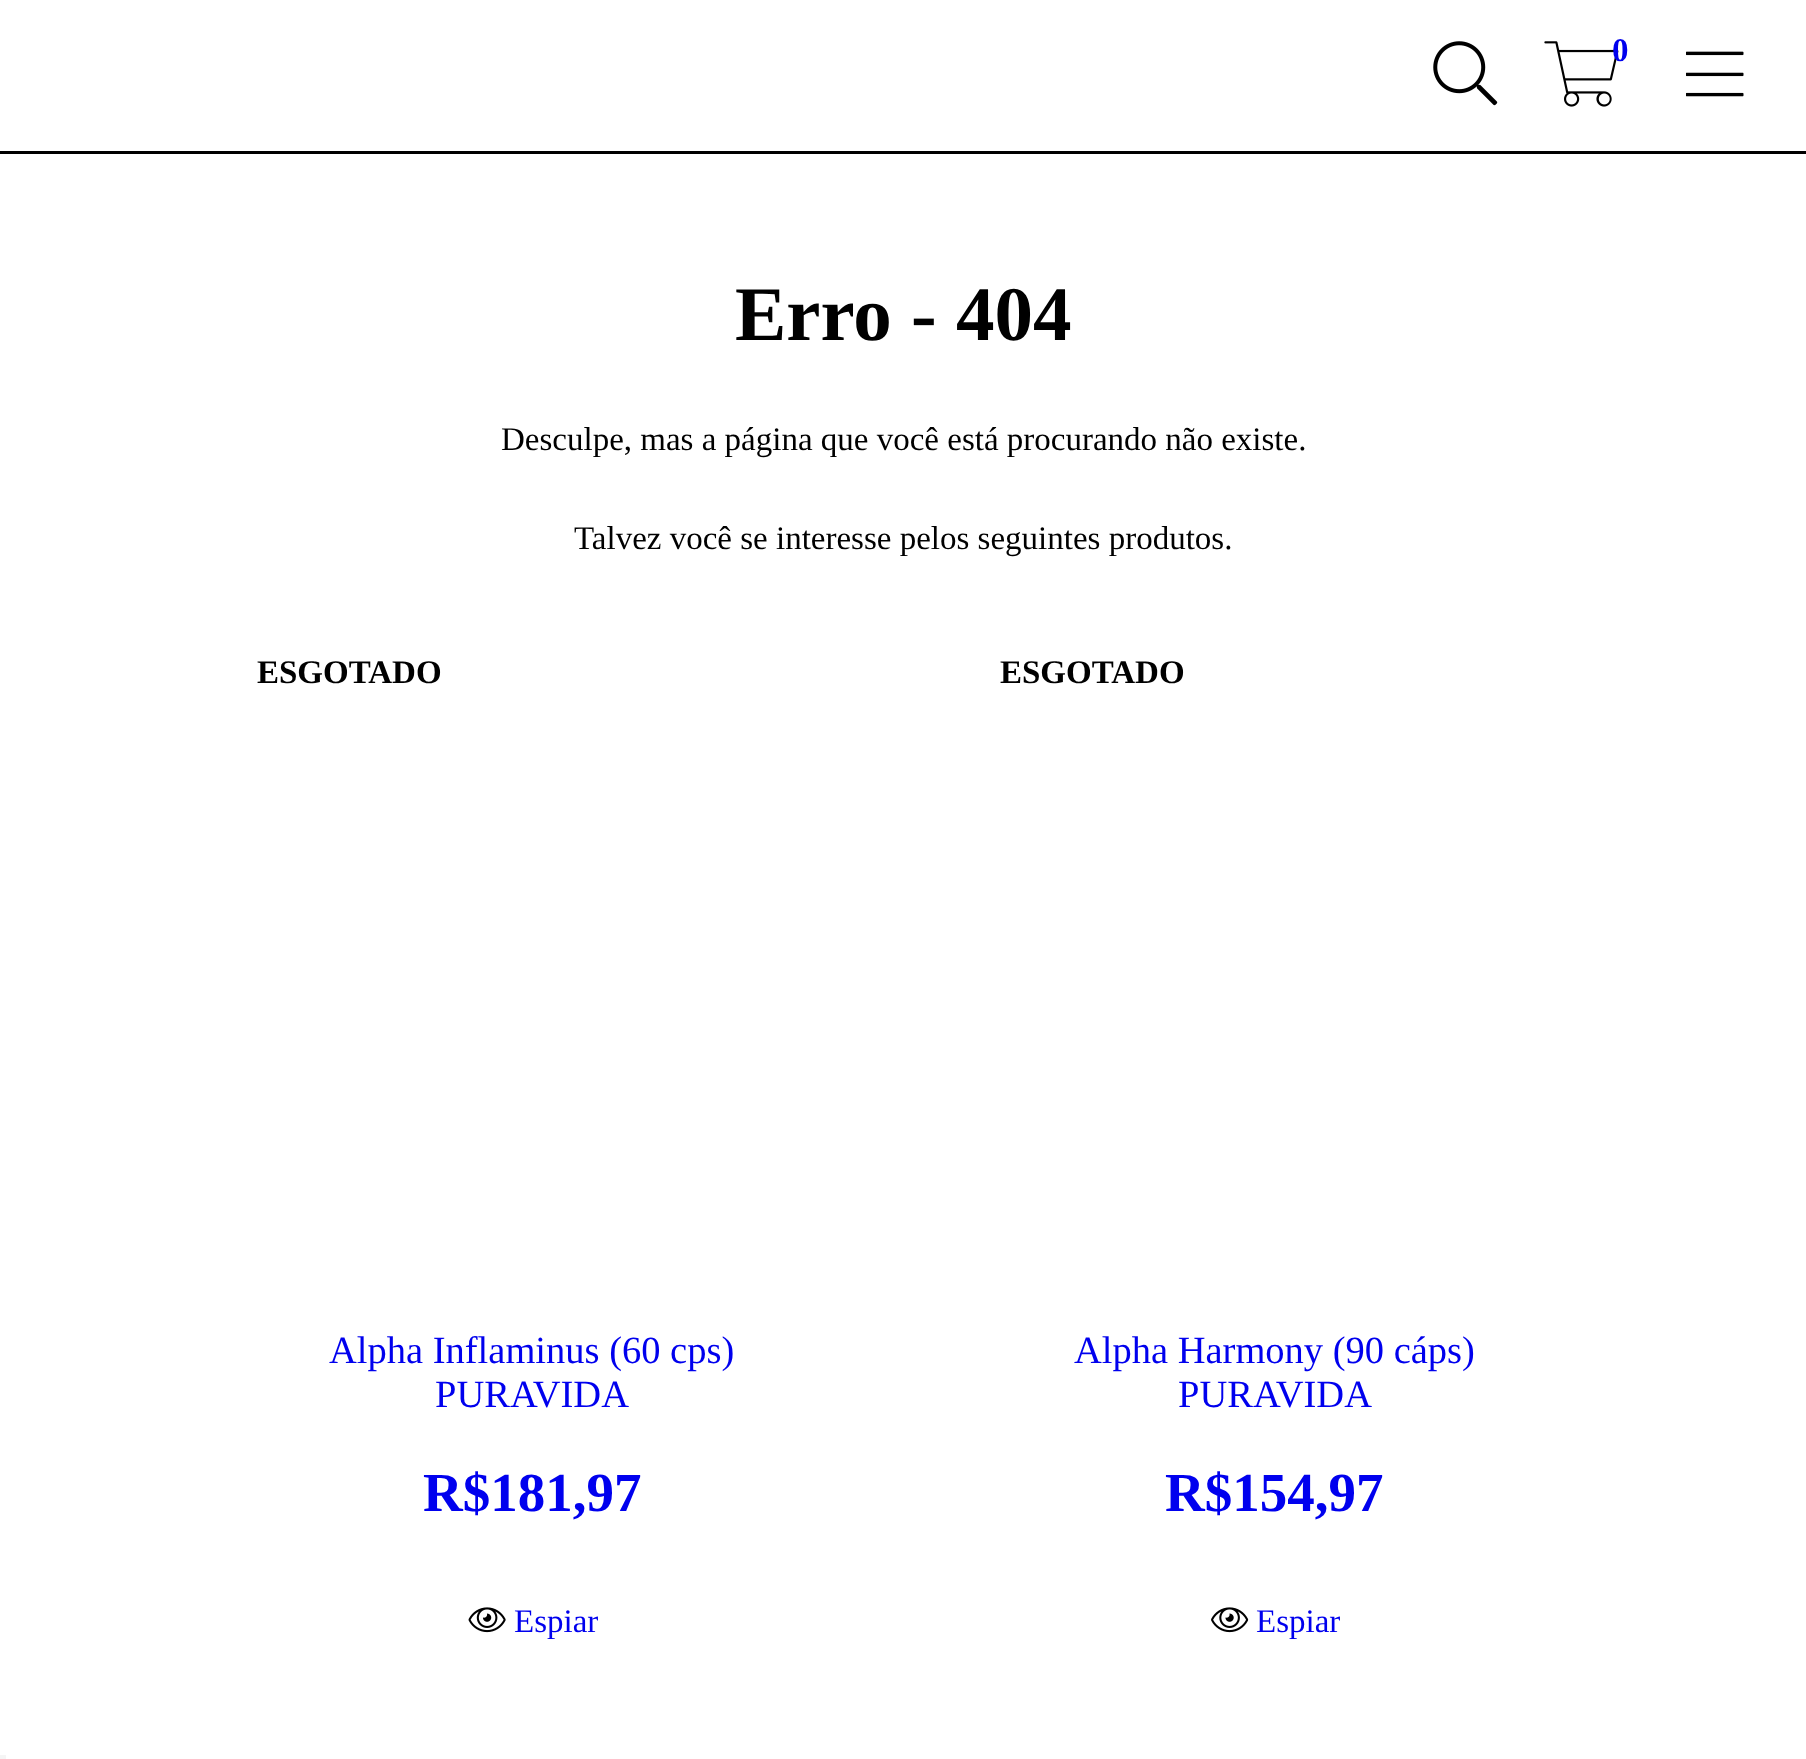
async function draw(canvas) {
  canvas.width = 1806;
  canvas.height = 1759;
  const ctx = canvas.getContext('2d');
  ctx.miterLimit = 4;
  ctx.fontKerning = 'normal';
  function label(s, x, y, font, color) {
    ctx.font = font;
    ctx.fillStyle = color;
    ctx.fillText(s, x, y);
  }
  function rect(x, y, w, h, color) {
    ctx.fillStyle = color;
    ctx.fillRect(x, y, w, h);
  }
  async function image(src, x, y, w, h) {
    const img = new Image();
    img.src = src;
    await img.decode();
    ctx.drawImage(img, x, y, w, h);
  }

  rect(0, 0, 1806, 1759, '#fff');
  await image('assets/img1.png', 1433, 41, 65, 65);
  await image('assets/img2.png', 1544, 41, 75, 66);
  label('0', 1612, 61, 'bold 33px Liberation Serif', '#00e');
  await image('assets/img3.png', 1686, 51, 58, 46);
  rect(0, 151, 1806, 3, '#000');
  label('Erro - 404', 735, 340, 'bold 77px Liberation Serif', '#000');
  label('Desculpe, mas a página que você está procurando não existe.', 501, 450, '33px Liberation Serif', '#000');
  label('Talvez você se interesse pelos seguintes produtos.', 574, 549, '33px Liberation Serif', '#000');
  label('ESGOTADO', 257, 683, 'bold 33px Liberation Serif', '#000');
  label('Alpha Inflaminus (60 cps)', 329, 1363, '38.5px Liberation Serif', '#00e');
  label('PURAVIDA', 435, 1407, '38.5px Liberation Serif', '#00e');
  label('R$181,97', 423, 1511, 'bold 55px Liberation Serif', '#00e');
  await image('assets/img4.png', 468, 1607, 38, 26);
  label('Espiar', 514, 1632, '33px Liberation Serif', '#00e');
  label('ESGOTADO', 1000, 683, 'bold 33px Liberation Serif', '#000');
  label('Alpha Harmony (90 cáps)', 1074, 1363, '38.5px Liberation Serif', '#00e');
  label('PURAVIDA', 1178, 1407, '38.5px Liberation Serif', '#00e');
  label('R$154,97', 1165, 1511, 'bold 55px Liberation Serif', '#00e');
  await image('assets/img5.png', 1211, 1607, 38, 26);
  label('Espiar', 1256, 1632, '33px Liberation Serif', '#00e');
  rect(0, 1755, 6, 4, '#f5f5f5');
}

draw(document.querySelector('canvas'));
